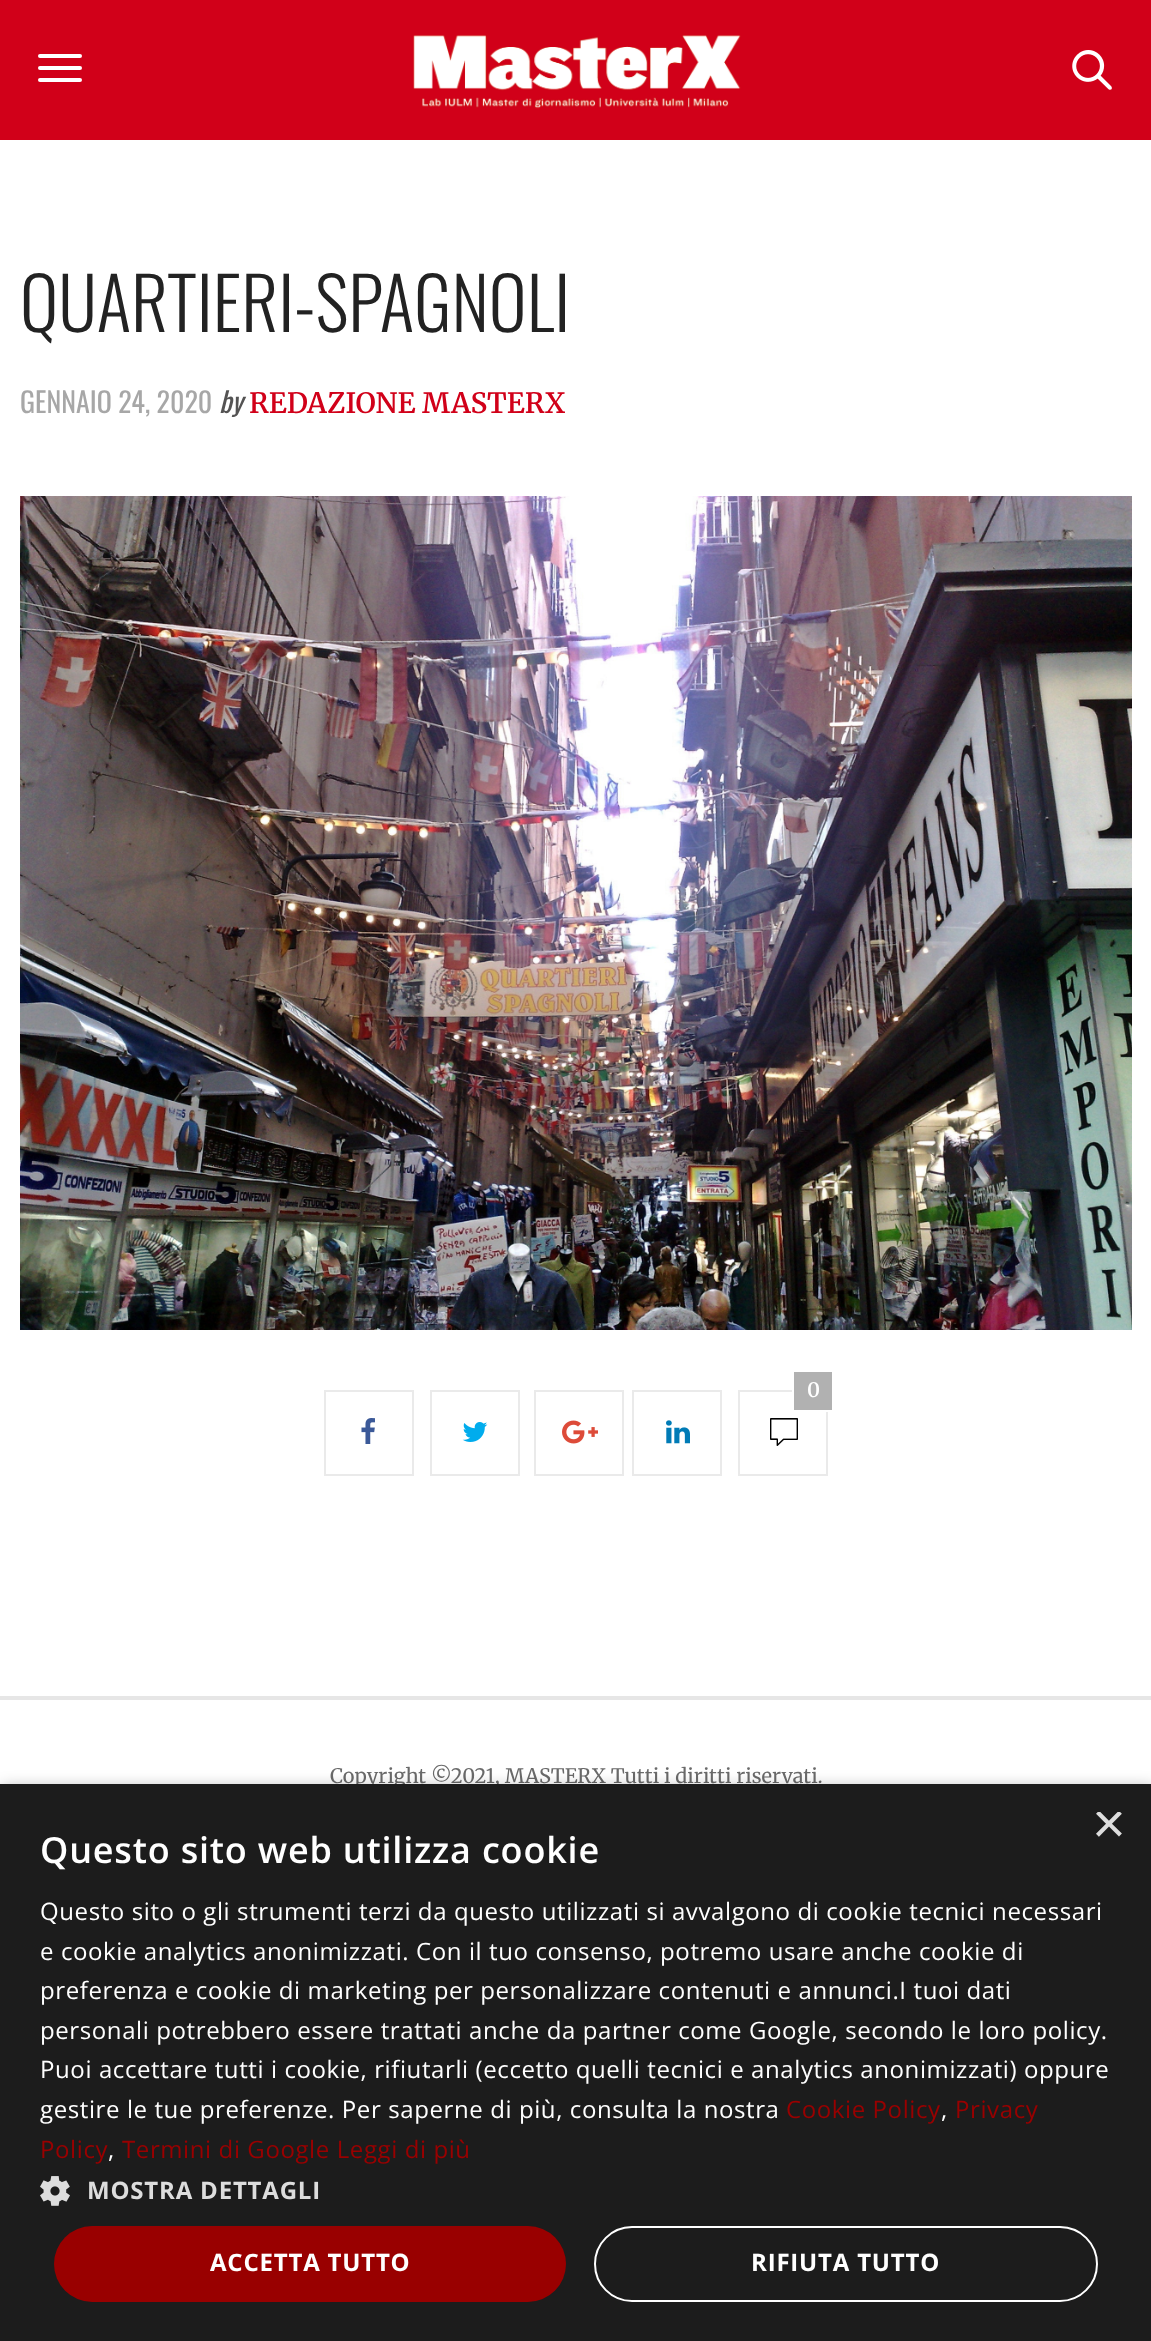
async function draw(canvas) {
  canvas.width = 1151;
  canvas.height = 2341;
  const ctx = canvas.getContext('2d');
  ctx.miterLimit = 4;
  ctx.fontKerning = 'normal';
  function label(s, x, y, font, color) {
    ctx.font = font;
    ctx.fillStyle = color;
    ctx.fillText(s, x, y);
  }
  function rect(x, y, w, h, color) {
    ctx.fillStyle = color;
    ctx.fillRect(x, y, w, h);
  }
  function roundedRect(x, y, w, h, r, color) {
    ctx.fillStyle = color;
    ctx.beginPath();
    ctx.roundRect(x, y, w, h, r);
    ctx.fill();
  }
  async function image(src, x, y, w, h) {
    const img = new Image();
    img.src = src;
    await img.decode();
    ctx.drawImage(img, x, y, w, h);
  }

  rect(0, 0, 1151, 2341, '#fff');
  rect(0, 0, 1151, 140, '#d10019');
  roundedRect(38, 54, 44, 4, 2, '#fff');
  roundedRect(38, 66, 44, 4, 2, '#fff');
  roundedRect(38, 78, 44, 4, 2, '#fff');
  await image('assets/img1.png', 413, 35, 328, 74);
  await image('assets/img2.png', 1072, 50, 40, 40);
  label('QUARTIERI-SPAGNOLI', 20, 332, '300 72px Oswald', '#222');
  label('GENNAIO 24, 2020', 20, 413, '28px Oswald', '#a7a7a7');
  label('by', 219, 413, 'italic 28px Oswald', '#545353');
  label('REDAZIONE MASTERX', 249, 413, '600 28px Merriweather', '#d10019');
  await image('assets/img3.png', 20, 496, 1112, 834);
  ctx.strokeStyle = '#eaeaea';
  ctx.lineWidth = 2;
  ctx.strokeRect(325, 1391, 88, 84);
  await image('assets/img4.png', 361, 1418, 14, 26);
  ctx.strokeRect(431, 1391, 88, 84);
  await image('assets/img5.png', 462, 1422, 26, 20);
  ctx.strokeRect(535, 1391, 88, 84);
  await image('assets/img6.png', 562, 1420, 36, 24);
  ctx.strokeRect(633, 1391, 88, 84);
  await image('assets/img7.png', 666, 1420, 24, 24);
  ctx.strokeRect(739, 1391, 88, 84);
  rect(794, 1372, 38, 38, '#b1b1b1');
  rect(826, 1410, 6, 2, '#fff');
  rect(792, 1390, 2, 2, '#fff');
  label('0', 807, 1397, '600 20px Merriweather', '#fff');
  await image('assets/img8.png', 770, 1418, 28, 28);
  rect(0, 1696, 1151, 4, '#e6e6e6');
  label('Copyright ©2021, MASTERX Tutti i diritti riservati.', 330, 1783, '20px Merriweather', '#6a6a6a');
  ctx.fillStyle = '#00000059';
  ctx.filter = 'blur(8px)';
  ctx.beginPath();
  ctx.rect(2, 1788, 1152, 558);
  ctx.fill();
  ctx.filter = 'none';
  rect(0, 1784, 1151, 557, '#1c1c1c');
  ctx.save();
  ctx.beginPath();
  ctx.rect(1092, 1812, 30, 30);
  ctx.clip();
  label('×', 1092, 1843, '58px Liberation Sans', '#ddd');
  ctx.restore();
  ctx.letterSpacing = '0.8px';
  label('Questo sito web utilizza cookie', 40, 1863, '600 36px Open Sans', '#fff');
  ctx.letterSpacing = '0.6px';
  label('Questo sito o gli strumenti terzi da questo utilizzati si avvalgono di cookie tecnici necessari', 40, 1920, '24px Open Sans', '#fff');
  label('e cookie analytics anonimizzati. Con il tuo consenso, potremo usare anche cookie di', 40, 1960, '24px Open Sans', '#fff');
  label('preferenza e cookie di marketing per personalizzare contenuti e annunci.I tuoi dati', 40, 1999, '24px Open Sans', '#fff');
  label('personali potrebbero essere trattati anche da partner come Google, secondo le loro policy.', 40, 2039, '24px Open Sans', '#fff');
  label('Puoi accettare tutti i cookie, rifiutarli (eccetto quelli tecnici e analytics anonimizzati) oppure', 40, 2078, '24px Open Sans', '#fff');
  label('gestire le tue preferenze. Per saperne di più, consulta la nostra', 40, 2118, '24px Open Sans', '#fff');
  label('Cookie Policy', 786, 2118, '24px Open Sans', '#900');
  label(',', 941, 2118, '24px Open Sans', '#fff');
  label('Privacy', 955, 2118, '24px Open Sans', '#900');
  label('Policy', 40, 2158, '24px Open Sans', '#900');
  label(',', 108, 2158, '24px Open Sans', '#fff');
  label('Termini di Google Leggi di più', 122, 2158, '24px Open Sans', '#900');
  await image('assets/img9.png', 40, 2176, 30, 30);
  ctx.letterSpacing = '0.8px';
  label('MOSTRA DETTAGLI', 87, 2199, 'bold 24px Open Sans', '#ddd');
  roundedRect(54, 2226, 512, 76, 38, '#900');
  label('ACCETTA TUTTO', 210, 2271, 'bold 24px Open Sans', '#fff');
  ctx.beginPath();
  ctx.roundRect(595, 2227, 502, 74, 37);
  ctx.strokeStyle = '#fff';
  ctx.stroke();
  label('RIFIUTA TUTTO', 751, 2271, 'bold 24px Open Sans', '#fff');
}

draw(document.querySelector('canvas'));
